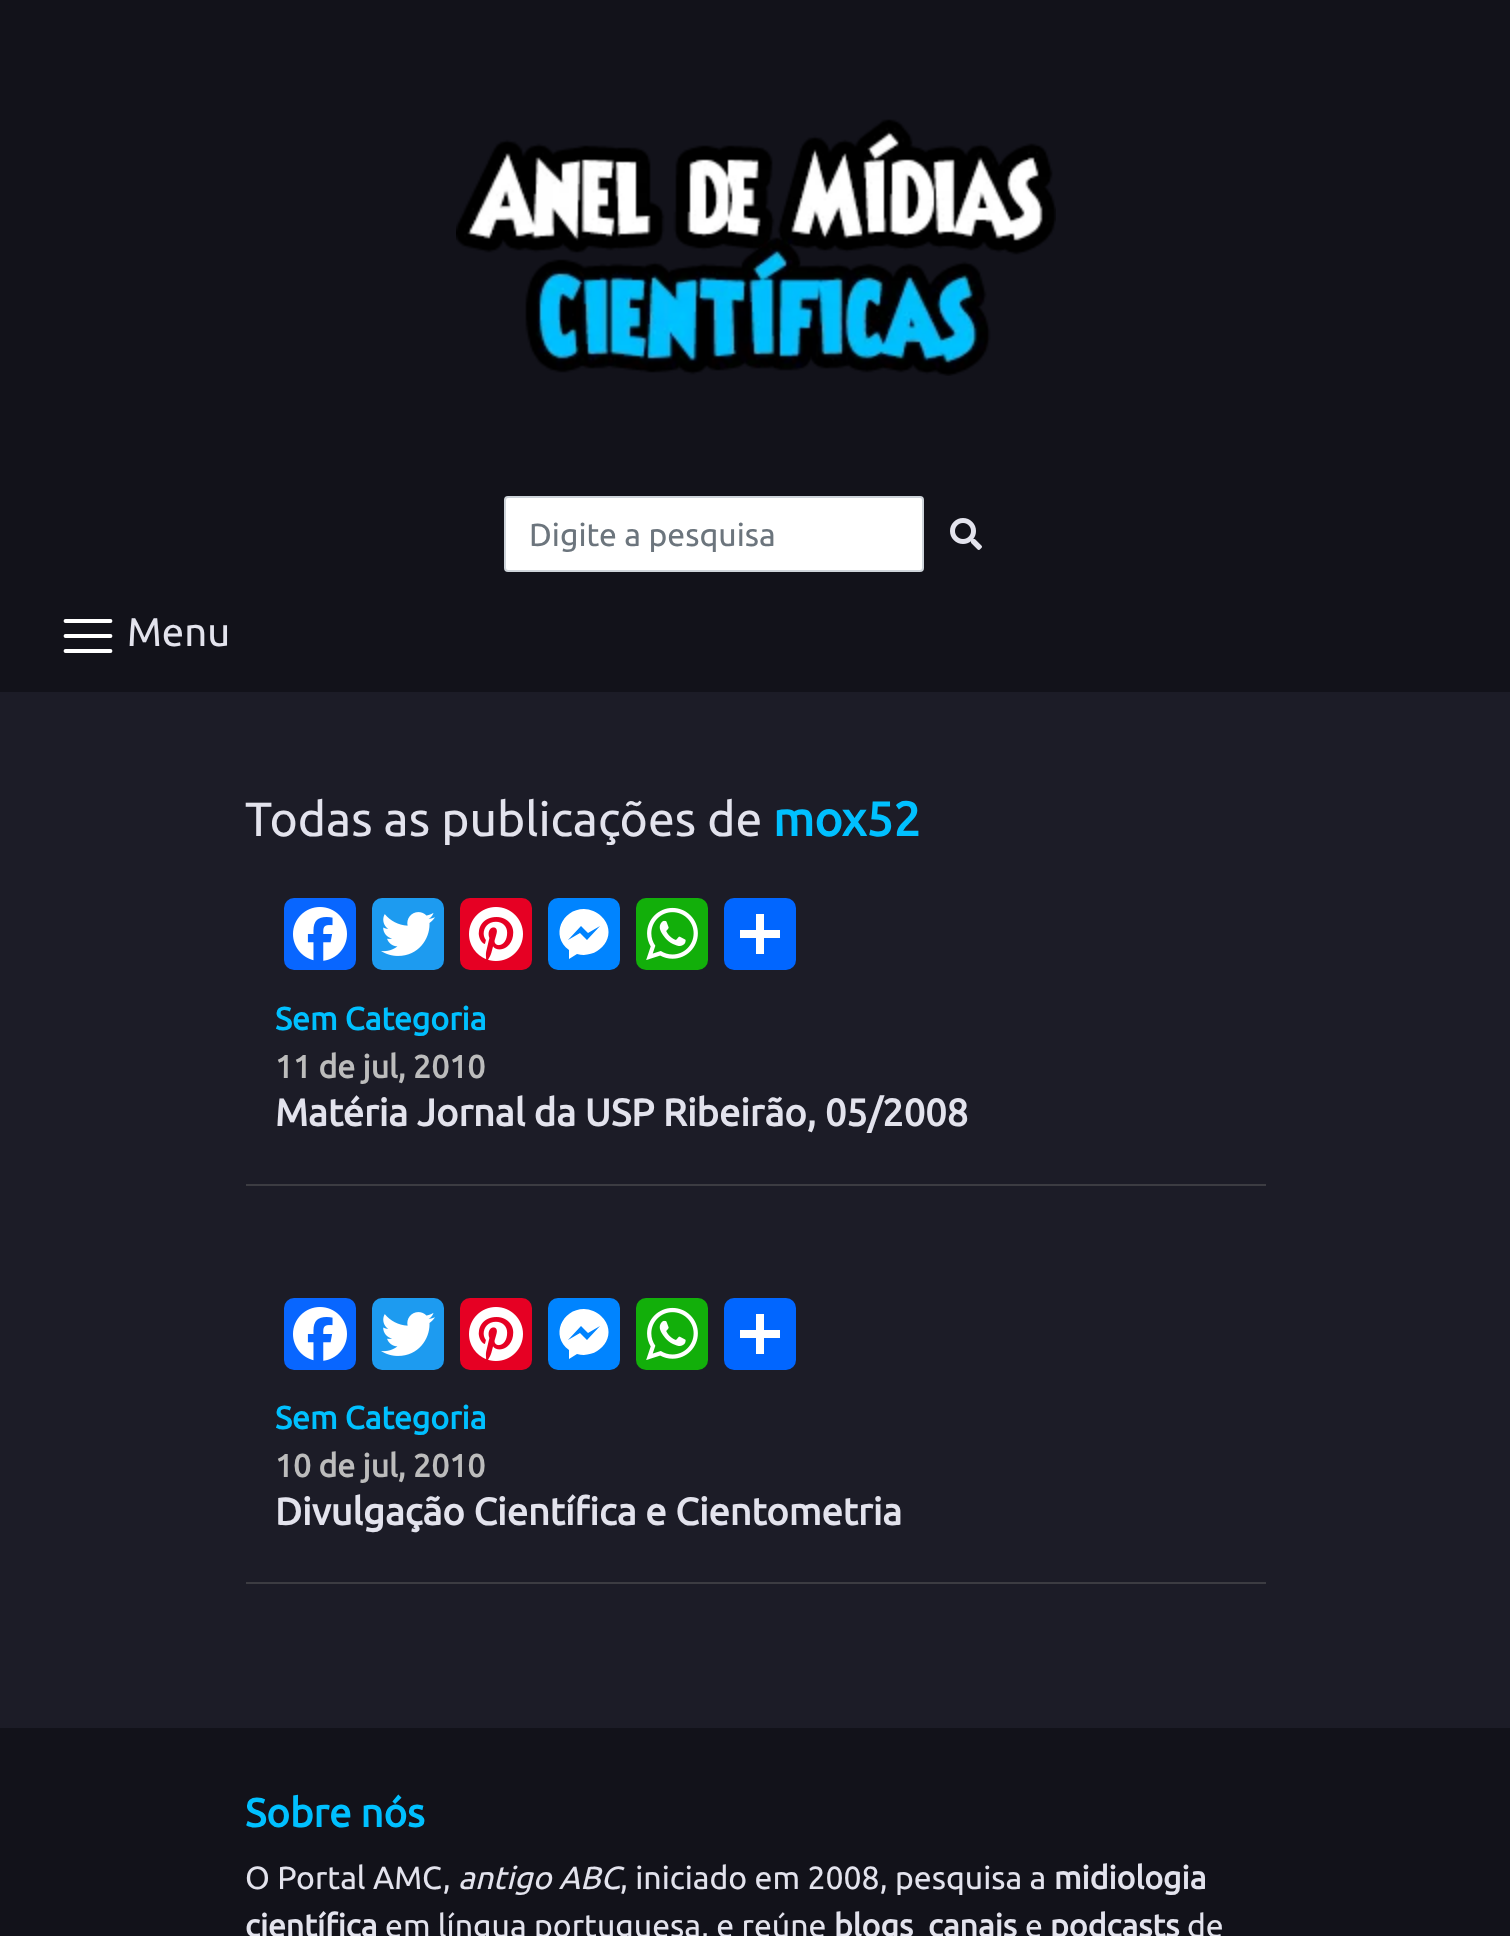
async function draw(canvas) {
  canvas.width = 1510;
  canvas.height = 1936;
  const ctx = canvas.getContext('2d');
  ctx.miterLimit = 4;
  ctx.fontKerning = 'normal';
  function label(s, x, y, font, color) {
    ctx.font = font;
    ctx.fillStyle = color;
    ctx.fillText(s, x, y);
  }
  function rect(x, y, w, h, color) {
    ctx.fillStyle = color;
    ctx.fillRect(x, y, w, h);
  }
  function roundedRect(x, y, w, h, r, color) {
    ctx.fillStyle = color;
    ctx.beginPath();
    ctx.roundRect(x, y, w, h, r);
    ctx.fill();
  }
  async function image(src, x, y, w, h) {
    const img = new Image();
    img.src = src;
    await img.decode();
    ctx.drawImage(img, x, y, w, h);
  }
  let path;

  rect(0, 0, 1510, 1936, '#1c1c27');
  rect(0, 0, 1510, 692, '#12121a');
  await image('assets/img1.png', 456, 119, 600, 257);
  ctx.fillStyle = '#fff';
  ctx.beginPath();
  ctx.roundRect(505, 497, 418, 74, 3);
  ctx.fill();
  ctx.strokeStyle = '#ced4da';
  ctx.lineWidth = 2;
  ctx.stroke();
  label('Digite a pesquisa', 529, 546, '32px Ubuntu', '#6c757d');
  await image('assets/img2.png', 950, 518, 32, 32);
  path = new Path2D('M65.5 621H110.5M65.5 636H110.5M65.5 651H110.5');
  ctx.strokeStyle = '#fff';
  ctx.lineWidth = 3.8;
  ctx.lineCap = 'round';
  ctx.stroke(path);
  label('Menu', 127, 646, '40px Ubuntu', '#e3e3ed');
  label('Todas as publicações de', 245, 836, '48px Ubuntu', '#e3e3ed');
  label('mox52', 773, 836, 'bold 48px Ubuntu', '#00c0ff');
  roundedRect(284, 898, 72, 72, 10, '#0866ff');
  await image('assets/img3.png', 293, 907, 54, 54);
  roundedRect(372, 898, 72, 72, 10, '#1d9bf0');
  await image('assets/img4.png', 381, 912, 54, 44);
  roundedRect(460, 898, 72, 72, 10, '#e60023');
  await image('assets/img5.png', 469, 907, 54, 54);
  roundedRect(548, 898, 72, 72, 10, '#0084ff');
  ctx.fillStyle = '#fff';
  path = new Path2D('M584 909C562 909 550 936 569 950V959L577 954C600 960 620 934 601 916C597 912 590 909 584 909M587 940L580 933L568 940L581 926L588 933L600 926Z');
  ctx.fill(path);
  roundedRect(636, 898, 72, 72, 10, '#12af0a');
  await image('assets/img6.png', 646, 907, 52, 53);
  roundedRect(724, 898, 72, 72, 10, '#0166ff');
  rect(756, 914, 8, 40, '#fff');
  rect(740, 930, 40, 8, '#fff');
  label('Sem Categoria', 275, 1030, 'bold 32px Ubuntu', '#00c0ff');
  label('11 de jul, 2010', 275, 1078, 'bold 32px Ubuntu', '#bcbcbc');
  label('Matéria Jornal da USP Ribeirão, 05/2008', 275, 1126, 'bold 38px Ubuntu', '#e3e3ed');
  rect(246, 1184, 1020, 2, '#3c3c42');
  roundedRect(284, 1298, 72, 72, 10, '#0866ff');
  await image('assets/img3.png', 293, 1307, 54, 54);
  roundedRect(372, 1298, 72, 72, 10, '#1d9bf0');
  await image('assets/img4.png', 381, 1312, 54, 44);
  roundedRect(460, 1298, 72, 72, 10, '#e60023');
  await image('assets/img5.png', 469, 1307, 54, 54);
  roundedRect(548, 1298, 72, 72, 10, '#0084ff');
  ctx.fillStyle = '#fff';
  path = new Path2D('M584 1309C562 1309 550 1336 569 1350V1359L577 1354C600 1360 620 1334 601 1316C597 1312 590 1309 584 1309M587 1340L580 1333L568 1340L581 1326L588 1333L600 1326Z');
  ctx.fill(path);
  roundedRect(636, 1298, 72, 72, 10, '#12af0a');
  await image('assets/img6.png', 646, 1307, 52, 53);
  roundedRect(724, 1298, 72, 72, 10, '#0166ff');
  rect(756, 1314, 8, 40, '#fff');
  rect(740, 1330, 40, 8, '#fff');
  label('Sem Categoria', 275, 1429, 'bold 32px Ubuntu', '#00c0ff');
  label('10 de jul, 2010', 275, 1477, 'bold 32px Ubuntu', '#bcbcbc');
  label('Divulgação Científica e Cientometria', 275, 1525, 'bold 38px Ubuntu', '#e3e3ed');
  rect(246, 1582, 1020, 2, '#3c3c42');
  rect(0, 1728, 1510, 208, '#12121a');
  label('Sobre nós', 245, 1827, 'bold 40px Ubuntu', '#00c0ff');
  label('O Portal AMC,', 245, 1889, '32px Ubuntu', '#e3e3ed');
  label('antigo ABC', 458, 1889, 'italic 32px Ubuntu', '#e3e3ed');
  label(', iniciado em 2008, pesquisa a', 620, 1889, '32px Ubuntu', '#e3e3ed');
  label('midiologia', 1054, 1889, 'bold 32px Ubuntu', '#e3e3ed');
  label('científica', 245, 1937, 'bold 32px Ubuntu', '#e3e3ed');
  label('em língua portuguesa, e reúne', 385, 1937, '32px Ubuntu', '#e3e3ed');
  label('blogs', 834, 1937, 'bold 32px Ubuntu', '#e3e3ed');
  label('canais', 928, 1937, 'bold 32px Ubuntu', '#e3e3ed');
  label('e', 1025, 1937, '32px Ubuntu', '#e3e3ed');
  label('podcasts', 1050, 1937, 'bold 32px Ubuntu', '#e3e3ed');
  label('de', 1187, 1937, '32px Ubuntu', '#e3e3ed');
}

draw(document.querySelector('canvas'));
